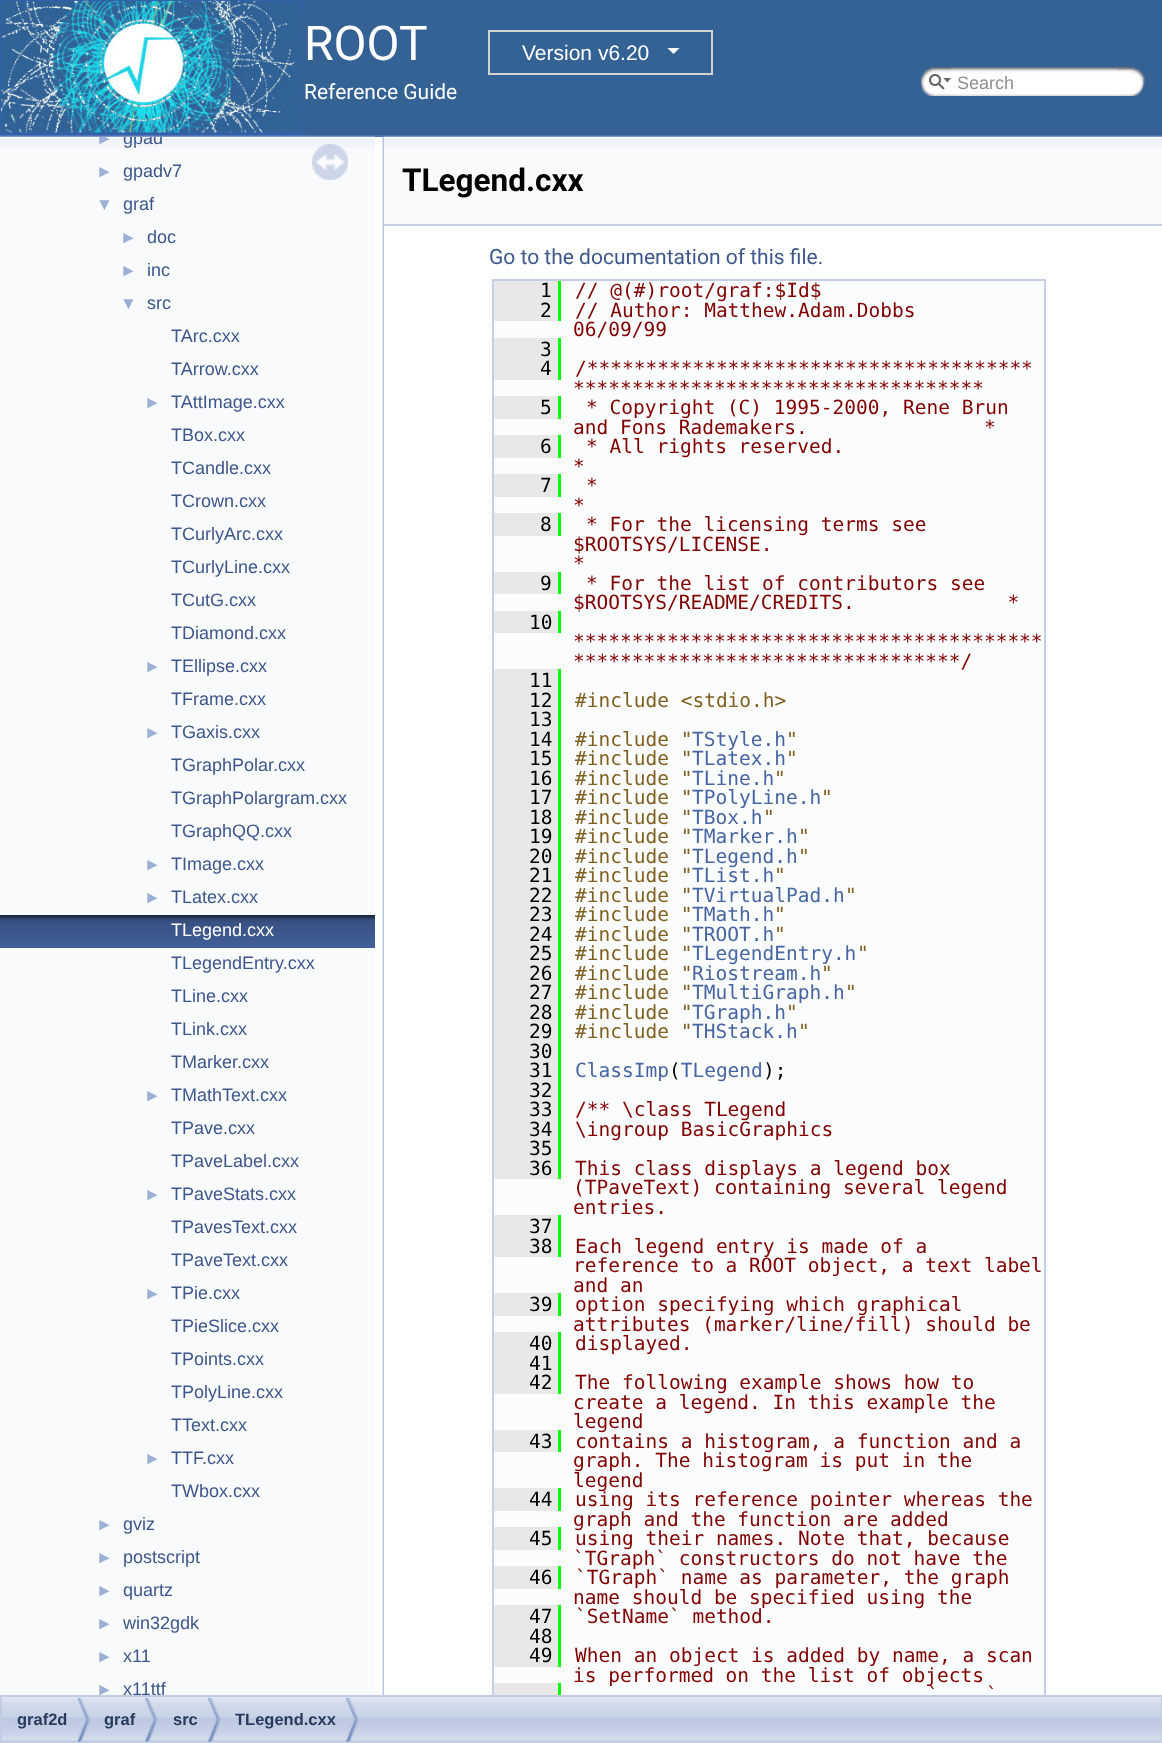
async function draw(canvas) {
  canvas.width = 1162;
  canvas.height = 1743;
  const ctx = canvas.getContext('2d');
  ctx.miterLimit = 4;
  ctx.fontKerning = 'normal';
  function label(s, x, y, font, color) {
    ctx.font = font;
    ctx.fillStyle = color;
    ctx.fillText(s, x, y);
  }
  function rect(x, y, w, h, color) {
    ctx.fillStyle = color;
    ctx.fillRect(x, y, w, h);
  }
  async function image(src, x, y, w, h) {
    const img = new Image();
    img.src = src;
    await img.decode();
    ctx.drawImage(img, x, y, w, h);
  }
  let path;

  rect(0, 0, 1162, 1743, '#fff');
  rect(0, 135, 1162, 2, '#5373b4');
  rect(304, 0, 858, 135, '#346295');
  await image('assets/img1.png', 0, 0, 305, 135);
  label('ROOT', 304, 60, '48px Roboto', '#fff');
  ctx.strokeStyle = '#d3d3d3';
  ctx.lineWidth = 2;
  ctx.strokeRect(489, 31, 223, 43);
  label('Version v6.20', 522, 60, '21px Liberation Sans', '#fff');
  path = new Path2D('M667.5 48H679.5L673.5 54Z');
  ctx.fill(path);
  label('Reference Guide', 304, 99, '21px Roboto', '#fff');
  await image('assets/img2.png', 921, 67, 30, 29);
  await image('assets/img3.png', 929, 74, 22, 16);
  await image('assets/img4.png', 951, 67, 176, 29);
  label('Search', 957, 89, '18px Liberation Sans', '#909090');
  await image('assets/img5.png', 1117, 67, 28, 29);
  rect(0, 148, 375, 1547, '#f9fafc');
  await image('assets/img6.png', 0, 136, 375, 12);
  ctx.save();
  ctx.beginPath();
  ctx.rect(0, 137, 375, 1558);
  ctx.clip();
  label('►', 96, 144, '17px Liberation Sans', '#9cafd4');
  label('gpad', 123, 144, '18px Liberation Sans', '#3d578c');
  ctx.restore();
  label('►', 96, 177, '17px Liberation Sans', '#9cafd4');
  label('gpadv7', 123, 177, '18px Liberation Sans', '#3d578c');
  label('▼', 96, 210, '17px Liberation Sans', '#9cafd4');
  label('graf', 123, 210, '18px Liberation Sans', '#3d578c');
  label('►', 120, 243, '17px Liberation Sans', '#9cafd4');
  label('doc', 147, 243, '18px Liberation Sans', '#3d578c');
  label('►', 120, 276, '17px Liberation Sans', '#9cafd4');
  label('inc', 147, 276, '18px Liberation Sans', '#3d578c');
  label('▼', 120, 309, '17px Liberation Sans', '#9cafd4');
  label('src', 147, 309, '18px Liberation Sans', '#3d578c');
  label('TArc.cxx', 171, 342, '18px Liberation Sans', '#3d578c');
  label('TArrow.cxx', 171, 375, '18px Liberation Sans', '#3d578c');
  label('►', 144, 408, '17px Liberation Sans', '#9cafd4');
  label('TAttImage.cxx', 171, 408, '18px Liberation Sans', '#3d578c');
  label('TBox.cxx', 171, 441, '18px Liberation Sans', '#3d578c');
  label('TCandle.cxx', 171, 474, '18px Liberation Sans', '#3d578c');
  label('TCrown.cxx', 171, 507, '18px Liberation Sans', '#3d578c');
  label('TCurlyArc.cxx', 171, 540, '18px Liberation Sans', '#3d578c');
  label('TCurlyLine.cxx', 171, 573, '18px Liberation Sans', '#3d578c');
  label('TCutG.cxx', 171, 606, '18px Liberation Sans', '#3d578c');
  label('TDiamond.cxx', 171, 639, '18px Liberation Sans', '#3d578c');
  label('►', 144, 672, '17px Liberation Sans', '#9cafd4');
  label('TEllipse.cxx', 171, 672, '18px Liberation Sans', '#3d578c');
  label('TFrame.cxx', 171, 705, '18px Liberation Sans', '#3d578c');
  label('►', 144, 738, '17px Liberation Sans', '#9cafd4');
  label('TGaxis.cxx', 171, 738, '18px Liberation Sans', '#3d578c');
  label('TGraphPolar.cxx', 171, 771, '18px Liberation Sans', '#3d578c');
  label('TGraphPolargram.cxx', 171, 804, '18px Liberation Sans', '#3d578c');
  label('TGraphQQ.cxx', 171, 837, '18px Liberation Sans', '#3d578c');
  label('►', 144, 870, '17px Liberation Sans', '#9cafd4');
  label('TImage.cxx', 171, 870, '18px Liberation Sans', '#3d578c');
  label('►', 144, 903, '17px Liberation Sans', '#9cafd4');
  label('TLatex.cxx', 171, 903, '18px Liberation Sans', '#3d578c');
  await image('assets/img7.png', 0, 915, 375, 33);
  label('TLegend.cxx', 171, 936, '18px Liberation Sans', '#fff');
  label('TLegendEntry.cxx', 171, 969, '18px Liberation Sans', '#3d578c');
  label('TLine.cxx', 171, 1002, '18px Liberation Sans', '#3d578c');
  label('TLink.cxx', 171, 1035, '18px Liberation Sans', '#3d578c');
  label('TMarker.cxx', 171, 1068, '18px Liberation Sans', '#3d578c');
  label('►', 144, 1101, '17px Liberation Sans', '#9cafd4');
  label('TMathText.cxx', 171, 1101, '18px Liberation Sans', '#3d578c');
  label('TPave.cxx', 171, 1134, '18px Liberation Sans', '#3d578c');
  label('TPaveLabel.cxx', 171, 1167, '18px Liberation Sans', '#3d578c');
  label('►', 144, 1200, '17px Liberation Sans', '#9cafd4');
  label('TPaveStats.cxx', 171, 1200, '18px Liberation Sans', '#3d578c');
  label('TPavesText.cxx', 171, 1233, '18px Liberation Sans', '#3d578c');
  label('TPaveText.cxx', 171, 1266, '18px Liberation Sans', '#3d578c');
  label('►', 144, 1299, '17px Liberation Sans', '#9cafd4');
  label('TPie.cxx', 171, 1299, '18px Liberation Sans', '#3d578c');
  label('TPieSlice.cxx', 171, 1332, '18px Liberation Sans', '#3d578c');
  label('TPoints.cxx', 171, 1365, '18px Liberation Sans', '#3d578c');
  label('TPolyLine.cxx', 171, 1398, '18px Liberation Sans', '#3d578c');
  label('TText.cxx', 171, 1431, '18px Liberation Sans', '#3d578c');
  label('►', 144, 1464, '17px Liberation Sans', '#9cafd4');
  label('TTF.cxx', 171, 1464, '18px Liberation Sans', '#3d578c');
  label('TWbox.cxx', 171, 1497, '18px Liberation Sans', '#3d578c');
  label('►', 96, 1530, '17px Liberation Sans', '#9cafd4');
  label('gviz', 123, 1530, '18px Liberation Sans', '#3d578c');
  label('►', 96, 1563, '17px Liberation Sans', '#9cafd4');
  label('postscript', 123, 1563, '18px Liberation Sans', '#3d578c');
  label('►', 96, 1596, '17px Liberation Sans', '#9cafd4');
  label('quartz', 123, 1596, '18px Liberation Sans', '#3d578c');
  label('►', 96, 1629, '17px Liberation Sans', '#9cafd4');
  label('win32gdk', 123, 1629, '18px Liberation Sans', '#3d578c');
  label('►', 96, 1662, '17px Liberation Sans', '#9cafd4');
  label('x11', 123, 1662, '18px Liberation Sans', '#3d578c');
  label('►', 96, 1695, '17px Liberation Sans', '#9cafd4');
  ctx.save();
  ctx.beginPath();
  ctx.rect(0, 137, 375, 1558);
  ctx.clip();
  label('x11ttf', 123, 1695, '18px Liberation Sans', '#3d578c');
  ctx.restore();
  await image('assets/img8.png', 312, 144, 36, 36);
  await image('assets/img9.png', 382, 136, 2, 1559);
  rect(384, 148, 778, 76, '#f9fafc');
  await image('assets/img10.png', 384, 136, 778, 12);
  rect(384, 224, 778, 2, '#c4cfe5');
  label('TLegend.cxx', 402, 191, 'bold 31.5px Roboto', '#000');
  label('Go to the documentation of this file.', 489, 264, '21px Roboto', '#3d578c');
  rect(494, 281, 550, 1414, '#fbfcfd');
  ctx.strokeStyle = '#c4cfe5';
  ctx.strokeRect(493, 280, 552, 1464);
  rect(494, 281, 64, 40, '#e8e8e8');
  label('1', 540, 297, '19.5px DejaVu Sans Mono', '#000');
  rect(558, 281, 3, 40, '#0f0');
  label('// @(#)root/graf:$Id$', 575, 297, '19.5px DejaVu Sans Mono', '#800000');
  label('2', 540, 317, '19.5px DejaVu Sans Mono', '#000');
  label('// Author: Matthew.Adam.Dobbs', 575, 317, '19.5px DejaVu Sans Mono', '#800000');
  label('06/09/99', 573, 336, '19.5px DejaVu Sans Mono', '#800000');
  rect(494, 338, 64, 42, '#e8e8e8');
  label('3', 540, 356, '19.5px DejaVu Sans Mono', '#000');
  rect(558, 338, 3, 42, '#0f0');
  label('4', 540, 375, '19.5px DejaVu Sans Mono', '#000');
  label('/**************************************', 575, 375, '19.5px DejaVu Sans Mono', '#800000');
  label('***********************************', 573, 395, '19.5px DejaVu Sans Mono', '#800000');
  rect(494, 396, 64, 23, '#e8e8e8');
  label('5', 540, 414, '19.5px DejaVu Sans Mono', '#000');
  rect(558, 396, 3, 23, '#0f0');
  label('* Copyright (C) 1995-2000, Rene Brun', 586, 414, '19.5px DejaVu Sans Mono', '#800000');
  label('and Fons Rademakers.               *', 573, 434, '19.5px DejaVu Sans Mono', '#800000');
  rect(494, 435, 64, 23, '#e8e8e8');
  label('6', 540, 453, '19.5px DejaVu Sans Mono', '#000');
  rect(558, 435, 3, 23, '#0f0');
  label('* All rights reserved.', 586, 453, '19.5px DejaVu Sans Mono', '#800000');
  label('*', 573, 473, '19.5px DejaVu Sans Mono', '#800000');
  rect(494, 474, 64, 23, '#e8e8e8');
  label('7', 540, 492, '19.5px DejaVu Sans Mono', '#000');
  rect(558, 474, 3, 23, '#0f0');
  label('*', 586, 492, '19.5px DejaVu Sans Mono', '#800000');
  label('*', 573, 512, '19.5px DejaVu Sans Mono', '#800000');
  rect(494, 513, 64, 23, '#e8e8e8');
  label('8', 540, 531, '19.5px DejaVu Sans Mono', '#000');
  rect(558, 513, 3, 23, '#0f0');
  label('* For the licensing terms see', 586, 531, '19.5px DejaVu Sans Mono', '#800000');
  label('$ROOTSYS/LICENSE.', 573, 551, '19.5px DejaVu Sans Mono', '#800000');
  label('*', 573, 570, '19.5px DejaVu Sans Mono', '#800000');
  rect(494, 572, 64, 22, '#e8e8e8');
  label('9', 540, 590, '19.5px DejaVu Sans Mono', '#000');
  rect(558, 572, 3, 22, '#0f0');
  label('* For the list of contributors see', 586, 590, '19.5px DejaVu Sans Mono', '#800000');
  label('$ROOTSYS/README/CREDITS.             *', 573, 609, '19.5px DejaVu Sans Mono', '#800000');
  rect(494, 611, 64, 22, '#e8e8e8');
  label('10', 529, 629, '19.5px DejaVu Sans Mono', '#000');
  rect(558, 611, 3, 22, '#0f0');
  label('****************************************', 573, 648, '19.5px DejaVu Sans Mono', '#800000');
  label('*********************************/', 573, 668, '19.5px DejaVu Sans Mono', '#800000');
  rect(494, 669, 64, 510, '#e8e8e8');
  label('11', 529, 687, '19.5px DejaVu Sans Mono', '#000');
  rect(558, 669, 3, 510, '#0f0');
  label('12', 529, 707, '19.5px DejaVu Sans Mono', '#000');
  label('#include <stdio.h>', 575, 707, '19.5px DejaVu Sans Mono', '#806020');
  label('13', 529, 726, '19.5px DejaVu Sans Mono', '#000');
  label('14', 529, 746, '19.5px DejaVu Sans Mono', '#000');
  label('#include "', 575, 746, '19.5px DejaVu Sans Mono', '#806020');
  label('TStyle.h', 692, 746, '19.5px DejaVu Sans Mono', '#4665a2');
  label('"', 786, 746, '19.5px DejaVu Sans Mono', '#806020');
  label('15', 529, 765, '19.5px DejaVu Sans Mono', '#000');
  label('#include "', 575, 765, '19.5px DejaVu Sans Mono', '#806020');
  label('TLatex.h', 692, 765, '19.5px DejaVu Sans Mono', '#4665a2');
  label('"', 786, 765, '19.5px DejaVu Sans Mono', '#806020');
  label('16', 529, 785, '19.5px DejaVu Sans Mono', '#000');
  label('#include "', 575, 785, '19.5px DejaVu Sans Mono', '#806020');
  label('TLine.h', 692, 785, '19.5px DejaVu Sans Mono', '#4665a2');
  label('"', 774, 785, '19.5px DejaVu Sans Mono', '#806020');
  label('17', 529, 804, '19.5px DejaVu Sans Mono', '#000');
  label('#include "', 575, 804, '19.5px DejaVu Sans Mono', '#806020');
  label('TPolyLine.h', 692, 804, '19.5px DejaVu Sans Mono', '#4665a2');
  label('"', 821, 804, '19.5px DejaVu Sans Mono', '#806020');
  label('18', 529, 824, '19.5px DejaVu Sans Mono', '#000');
  label('#include "', 575, 824, '19.5px DejaVu Sans Mono', '#806020');
  label('TBox.h', 692, 824, '19.5px DejaVu Sans Mono', '#4665a2');
  label('"', 763, 824, '19.5px DejaVu Sans Mono', '#806020');
  label('19', 529, 843, '19.5px DejaVu Sans Mono', '#000');
  label('#include "', 575, 843, '19.5px DejaVu Sans Mono', '#806020');
  label('TMarker.h', 692, 843, '19.5px DejaVu Sans Mono', '#4665a2');
  label('"', 798, 843, '19.5px DejaVu Sans Mono', '#806020');
  label('20', 529, 863, '19.5px DejaVu Sans Mono', '#000');
  label('#include "', 575, 863, '19.5px DejaVu Sans Mono', '#806020');
  label('TLegend.h', 692, 863, '19.5px DejaVu Sans Mono', '#4665a2');
  label('"', 798, 863, '19.5px DejaVu Sans Mono', '#806020');
  label('21', 529, 882, '19.5px DejaVu Sans Mono', '#000');
  label('#include "', 575, 882, '19.5px DejaVu Sans Mono', '#806020');
  label('TList.h', 692, 882, '19.5px DejaVu Sans Mono', '#4665a2');
  label('"', 774, 882, '19.5px DejaVu Sans Mono', '#806020');
  label('22', 529, 902, '19.5px DejaVu Sans Mono', '#000');
  label('#include "', 575, 902, '19.5px DejaVu Sans Mono', '#806020');
  label('TVirtualPad.h', 692, 902, '19.5px DejaVu Sans Mono', '#4665a2');
  label('"', 845, 902, '19.5px DejaVu Sans Mono', '#806020');
  label('23', 529, 921, '19.5px DejaVu Sans Mono', '#000');
  label('#include "', 575, 921, '19.5px DejaVu Sans Mono', '#806020');
  label('TMath.h', 692, 921, '19.5px DejaVu Sans Mono', '#4665a2');
  label('"', 774, 921, '19.5px DejaVu Sans Mono', '#806020');
  label('24', 529, 941, '19.5px DejaVu Sans Mono', '#000');
  label('#include "', 575, 941, '19.5px DejaVu Sans Mono', '#806020');
  label('TROOT.h', 692, 941, '19.5px DejaVu Sans Mono', '#4665a2');
  label('"', 774, 941, '19.5px DejaVu Sans Mono', '#806020');
  label('25', 529, 960, '19.5px DejaVu Sans Mono', '#000');
  label('#include "', 575, 960, '19.5px DejaVu Sans Mono', '#806020');
  label('TLegendEntry.h', 692, 960, '19.5px DejaVu Sans Mono', '#4665a2');
  label('"', 857, 960, '19.5px DejaVu Sans Mono', '#806020');
  label('26', 529, 980, '19.5px DejaVu Sans Mono', '#000');
  label('#include "', 575, 980, '19.5px DejaVu Sans Mono', '#806020');
  label('Riostream.h', 692, 980, '19.5px DejaVu Sans Mono', '#4665a2');
  label('"', 821, 980, '19.5px DejaVu Sans Mono', '#806020');
  label('27', 529, 999, '19.5px DejaVu Sans Mono', '#000');
  label('#include "', 575, 999, '19.5px DejaVu Sans Mono', '#806020');
  label('TMultiGraph.h', 692, 999, '19.5px DejaVu Sans Mono', '#4665a2');
  label('"', 845, 999, '19.5px DejaVu Sans Mono', '#806020');
  label('28', 529, 1019, '19.5px DejaVu Sans Mono', '#000');
  label('#include "', 575, 1019, '19.5px DejaVu Sans Mono', '#806020');
  label('TGraph.h', 692, 1019, '19.5px DejaVu Sans Mono', '#4665a2');
  label('"', 786, 1019, '19.5px DejaVu Sans Mono', '#806020');
  label('29', 529, 1038, '19.5px DejaVu Sans Mono', '#000');
  label('#include "', 575, 1038, '19.5px DejaVu Sans Mono', '#806020');
  label('THStack.h', 692, 1038, '19.5px DejaVu Sans Mono', '#4665a2');
  label('"', 798, 1038, '19.5px DejaVu Sans Mono', '#806020');
  label('30', 529, 1058, '19.5px DejaVu Sans Mono', '#000');
  label('31', 529, 1077, '19.5px DejaVu Sans Mono', '#000');
  label('ClassImp TLegend', 575, 1077, '19.5px DejaVu Sans Mono', '#4665a2');
  label('(', 669, 1077, '19.5px DejaVu Sans Mono', '#000');
  label(');', 763, 1077, '19.5px DejaVu Sans Mono', '#000');
  label('32', 529, 1097, '19.5px DejaVu Sans Mono', '#000');
  label('33', 529, 1116, '19.5px DejaVu Sans Mono', '#000');
  label('/** \\class TLegend', 575, 1116, '19.5px DejaVu Sans Mono', '#800000');
  label('34', 529, 1136, '19.5px DejaVu Sans Mono', '#000');
  label('\\ingroup BasicGraphics', 575, 1136, '19.5px DejaVu Sans Mono', '#800000');
  label('35', 529, 1155, '19.5px DejaVu Sans Mono', '#000');
  label('36', 529, 1175, '19.5px DejaVu Sans Mono', '#000');
  label('This class displays a legend box', 575, 1175, '19.5px DejaVu Sans Mono', '#800000');
  label('(TPaveText) containing several legend', 573, 1194, '19.5px DejaVu Sans Mono', '#800000');
  label('entries.', 573, 1214, '19.5px DejaVu Sans Mono', '#800000');
  rect(494, 1215, 64, 42, '#e8e8e8');
  label('37', 529, 1233, '19.5px DejaVu Sans Mono', '#000');
  rect(558, 1215, 3, 42, '#0f0');
  label('38', 529, 1253, '19.5px DejaVu Sans Mono', '#000');
  label('Each legend entry is made of a', 575, 1253, '19.5px DejaVu Sans Mono', '#800000');
  label('reference to a ROOT object, a text label', 573, 1272, '19.5px DejaVu Sans Mono', '#800000');
  label('and an', 573, 1292, '19.5px DejaVu Sans Mono', '#800000');
  rect(494, 1293, 64, 23, '#e8e8e8');
  label('39', 529, 1311, '19.5px DejaVu Sans Mono', '#000');
  rect(558, 1293, 3, 23, '#0f0');
  label('option specifying which graphical', 575, 1311, '19.5px DejaVu Sans Mono', '#800000');
  label('attributes (marker/line/fill) should be', 573, 1331, '19.5px DejaVu Sans Mono', '#800000');
  rect(494, 1332, 64, 62, '#e8e8e8');
  label('40', 529, 1350, '19.5px DejaVu Sans Mono', '#000');
  rect(558, 1332, 3, 62, '#0f0');
  label('displayed.', 575, 1350, '19.5px DejaVu Sans Mono', '#800000');
  label('41', 529, 1370, '19.5px DejaVu Sans Mono', '#000');
  label('42', 529, 1389, '19.5px DejaVu Sans Mono', '#000');
  label('The following example shows how to', 575, 1389, '19.5px DejaVu Sans Mono', '#800000');
  label('create a legend. In this example the', 573, 1409, '19.5px DejaVu Sans Mono', '#800000');
  label('legend', 573, 1428, '19.5px DejaVu Sans Mono', '#800000');
  rect(494, 1430, 64, 22, '#e8e8e8');
  label('43', 529, 1448, '19.5px DejaVu Sans Mono', '#000');
  rect(558, 1430, 3, 22, '#0f0');
  label('contains a histogram, a function and a', 575, 1448, '19.5px DejaVu Sans Mono', '#800000');
  label('graph. The histogram is put in the', 573, 1467, '19.5px DejaVu Sans Mono', '#800000');
  label('legend', 573, 1487, '19.5px DejaVu Sans Mono', '#800000');
  rect(494, 1488, 64, 23, '#e8e8e8');
  label('44', 529, 1506, '19.5px DejaVu Sans Mono', '#000');
  rect(558, 1488, 3, 23, '#0f0');
  label('using its reference pointer whereas the', 575, 1506, '19.5px DejaVu Sans Mono', '#800000');
  label('graph and the function are added', 573, 1526, '19.5px DejaVu Sans Mono', '#800000');
  rect(494, 1527, 64, 23, '#e8e8e8');
  label('45', 529, 1545, '19.5px DejaVu Sans Mono', '#000');
  rect(558, 1527, 3, 23, '#0f0');
  label('using their names. Note that, because', 575, 1545, '19.5px DejaVu Sans Mono', '#800000');
  label('`TGraph` constructors do not have the', 573, 1565, '19.5px DejaVu Sans Mono', '#800000');
  rect(494, 1566, 64, 23, '#e8e8e8');
  label('46', 529, 1584, '19.5px DejaVu Sans Mono', '#000');
  rect(558, 1566, 3, 23, '#0f0');
  label('`TGraph` name as parameter, the graph', 575, 1584, '19.5px DejaVu Sans Mono', '#800000');
  label('name should be specified using the', 573, 1604, '19.5px DejaVu Sans Mono', '#800000');
  rect(494, 1605, 64, 62, '#e8e8e8');
  label('47', 529, 1623, '19.5px DejaVu Sans Mono', '#000');
  rect(558, 1605, 3, 62, '#0f0');
  label('`SetName` method.', 575, 1623, '19.5px DejaVu Sans Mono', '#800000');
  label('48', 529, 1643, '19.5px DejaVu Sans Mono', '#000');
  label('49', 529, 1662, '19.5px DejaVu Sans Mono', '#000');
  label('When an object is added by name, a scan', 575, 1662, '19.5px DejaVu Sans Mono', '#800000');
  label('is performed on the list of objects', 573, 1682, '19.5px DejaVu Sans Mono', '#800000');
  rect(494, 1683, 64, 12, '#e8e8e8');
  rect(558, 1683, 3, 12, '#0f0');
  label('`', 927, 1701, '19.5px DejaVu Sans Mono', '#800000');
  label('`', 986, 1701, '19.5px DejaVu Sans Mono', '#800000');
  await image('assets/img11.png', 2, 1697, 1159, 44);
  ctx.strokeStyle = '#c2cde4';
  ctx.strokeRect(1, 1696, 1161, 46);
  await image('assets/img12.png', 78, 1698, 12, 44);
  label('graf2d', 17, 1725, 'bold 16.5px Liberation Sans', '#283a5d');
  await image('assets/img13.png', 145, 1698, 13, 44);
  label('graf', 104, 1725, 'bold 16.5px Liberation Sans', '#283a5d');
  await image('assets/img13.png', 208, 1698, 13, 44);
  label('src', 173, 1725, 'bold 16.5px Liberation Sans', '#283a5d');
  await image('assets/img13.png', 346, 1698, 13, 44);
  label('TLegend.cxx', 235, 1725, 'bold 16.5px Liberation Sans', '#283a5d');
}

draw(document.querySelector('canvas'));
